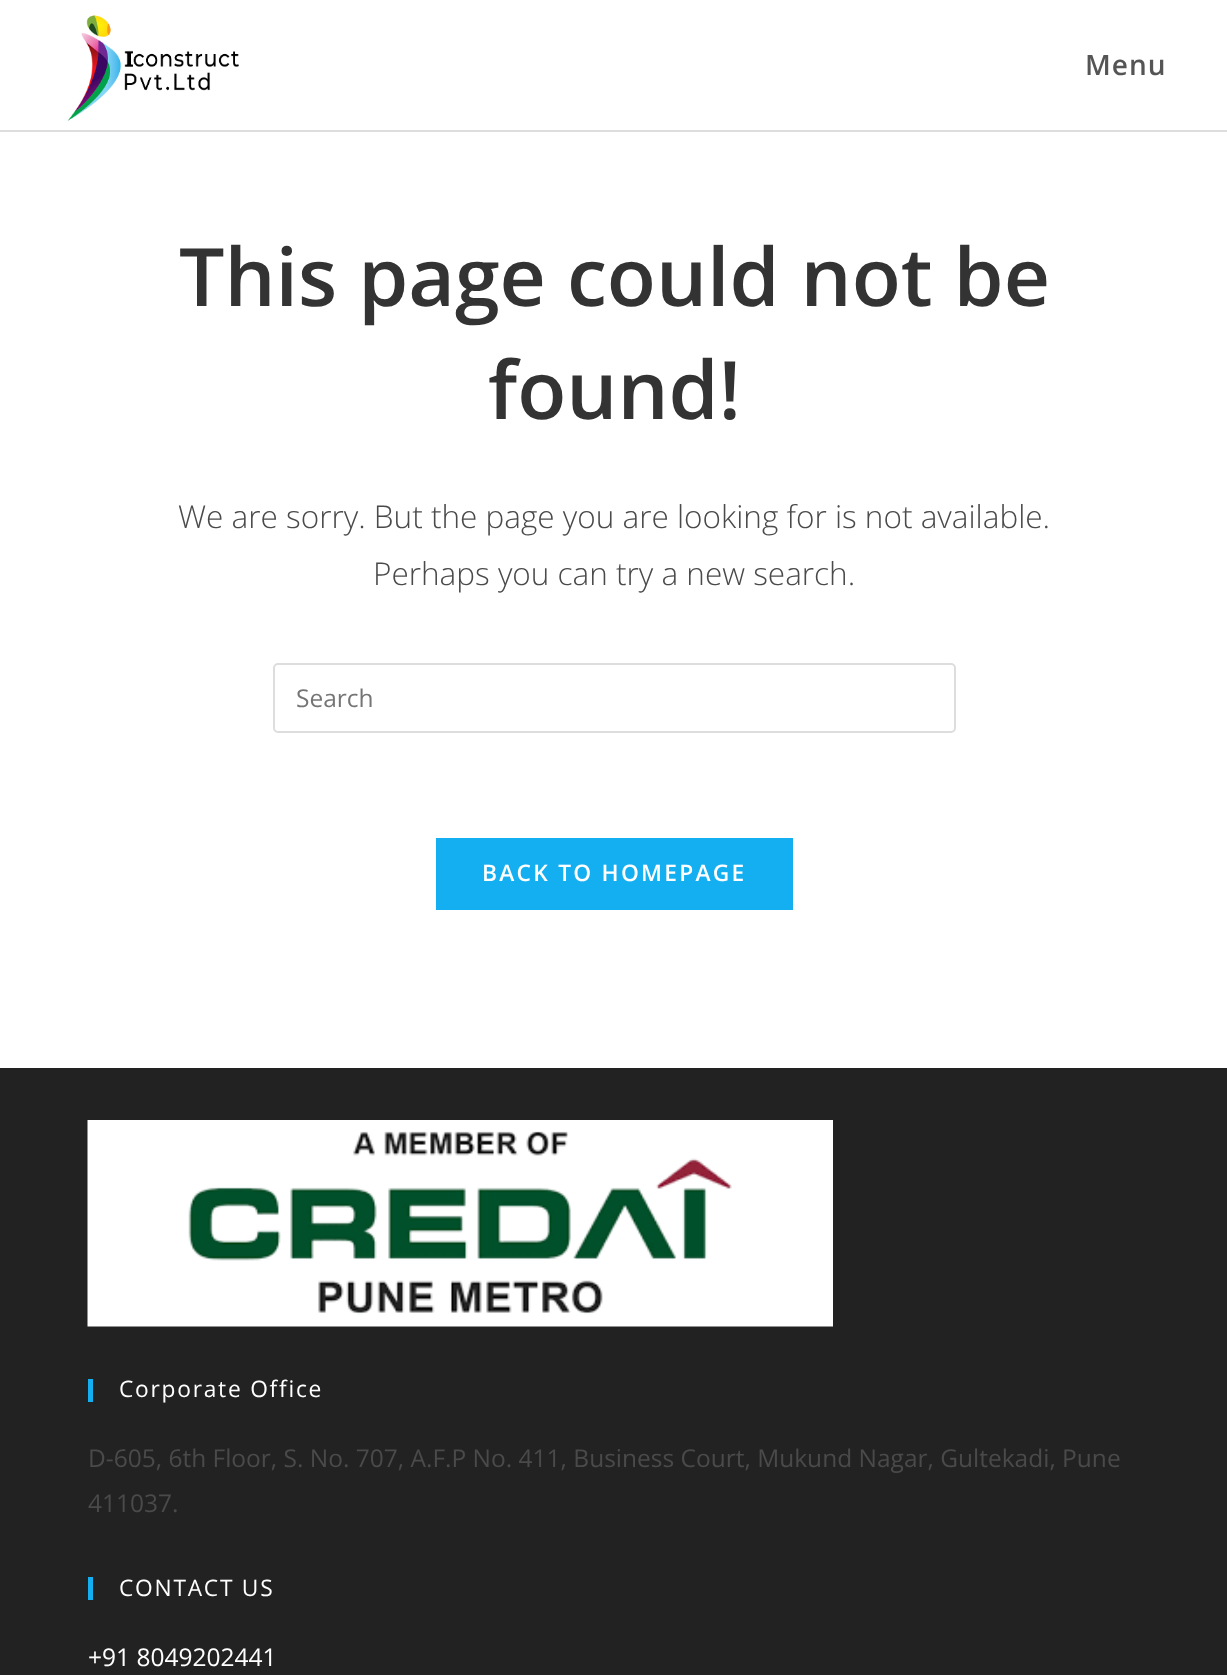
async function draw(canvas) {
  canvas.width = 1227;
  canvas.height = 1675;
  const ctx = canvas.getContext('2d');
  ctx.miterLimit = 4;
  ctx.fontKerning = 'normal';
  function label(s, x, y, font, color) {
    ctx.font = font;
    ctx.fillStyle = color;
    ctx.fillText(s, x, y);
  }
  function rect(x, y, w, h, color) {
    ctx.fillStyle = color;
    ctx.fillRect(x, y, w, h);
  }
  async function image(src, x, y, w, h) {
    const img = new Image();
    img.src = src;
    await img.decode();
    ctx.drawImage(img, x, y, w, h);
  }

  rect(0, 0, 1227, 1675, '#fff');
  rect(0, 130, 1227, 2, '#ddd');
  await image('assets/img1.png', 67, 15, 172, 106);
  ctx.letterSpacing = '1px';
  label('Menu', 1085, 75, '600 28px Open Sans', '#555');
  ctx.letterSpacing = '0px';
  label('This page could not be', 179, 306, '600 80.5px Open Sans', '#333');
  label('found!', 488, 419, '600 80.5px Open Sans', '#333');
  label('We are sorry. But the page you are looking for is not available.', 178, 528, '300 31.5px Open Sans', '#4a4a4a');
  label('Perhaps you can try a new search.', 373, 585, '300 31.5px Open Sans', '#4a4a4a');
  ctx.beginPath();
  ctx.roundRect(274, 664, 681, 68, 4);
  ctx.strokeStyle = '#ddd';
  ctx.lineWidth = 2;
  ctx.stroke();
  label('Search', 296, 707, '24.5px Open Sans', '#757575');
  rect(436, 838, 357, 72, '#13aff0');
  ctx.letterSpacing = '2.25px';
  label('BACK TO HOMEPAGE', 482, 881, '600 22.75px Open Sans', '#fff');
  rect(0, 1068, 1227, 607, '#222');
  await image('assets/img2.png', 87, 1120, 746, 207);
  rect(88, 1379, 5, 23, '#13aff0');
  ctx.letterSpacing = '1.75px';
  label('Corporate Office', 119, 1397, '22.75px Open Sans', '#fff');
  ctx.letterSpacing = '0px';
  label('D-605, 6th Floor, S. No. 707, A.F.P No. 411, Business Court, Mukund Nagar, Gultekadi, Pune', 88, 1467, '24.5px Open Sans', '#4a4a4a');
  label('411037.', 88, 1512, '24.5px Open Sans', '#4a4a4a');
  rect(88, 1577, 5, 23, '#13aff0');
  ctx.letterSpacing = '1.75px';
  label('CONTACT US', 119, 1596, '22.75px Open Sans', '#fff');
  ctx.letterSpacing = '0px';
  label('+91 8049202441', 88, 1666, '24.5px Open Sans', '#fff');
}

draw(document.querySelector('canvas'));
